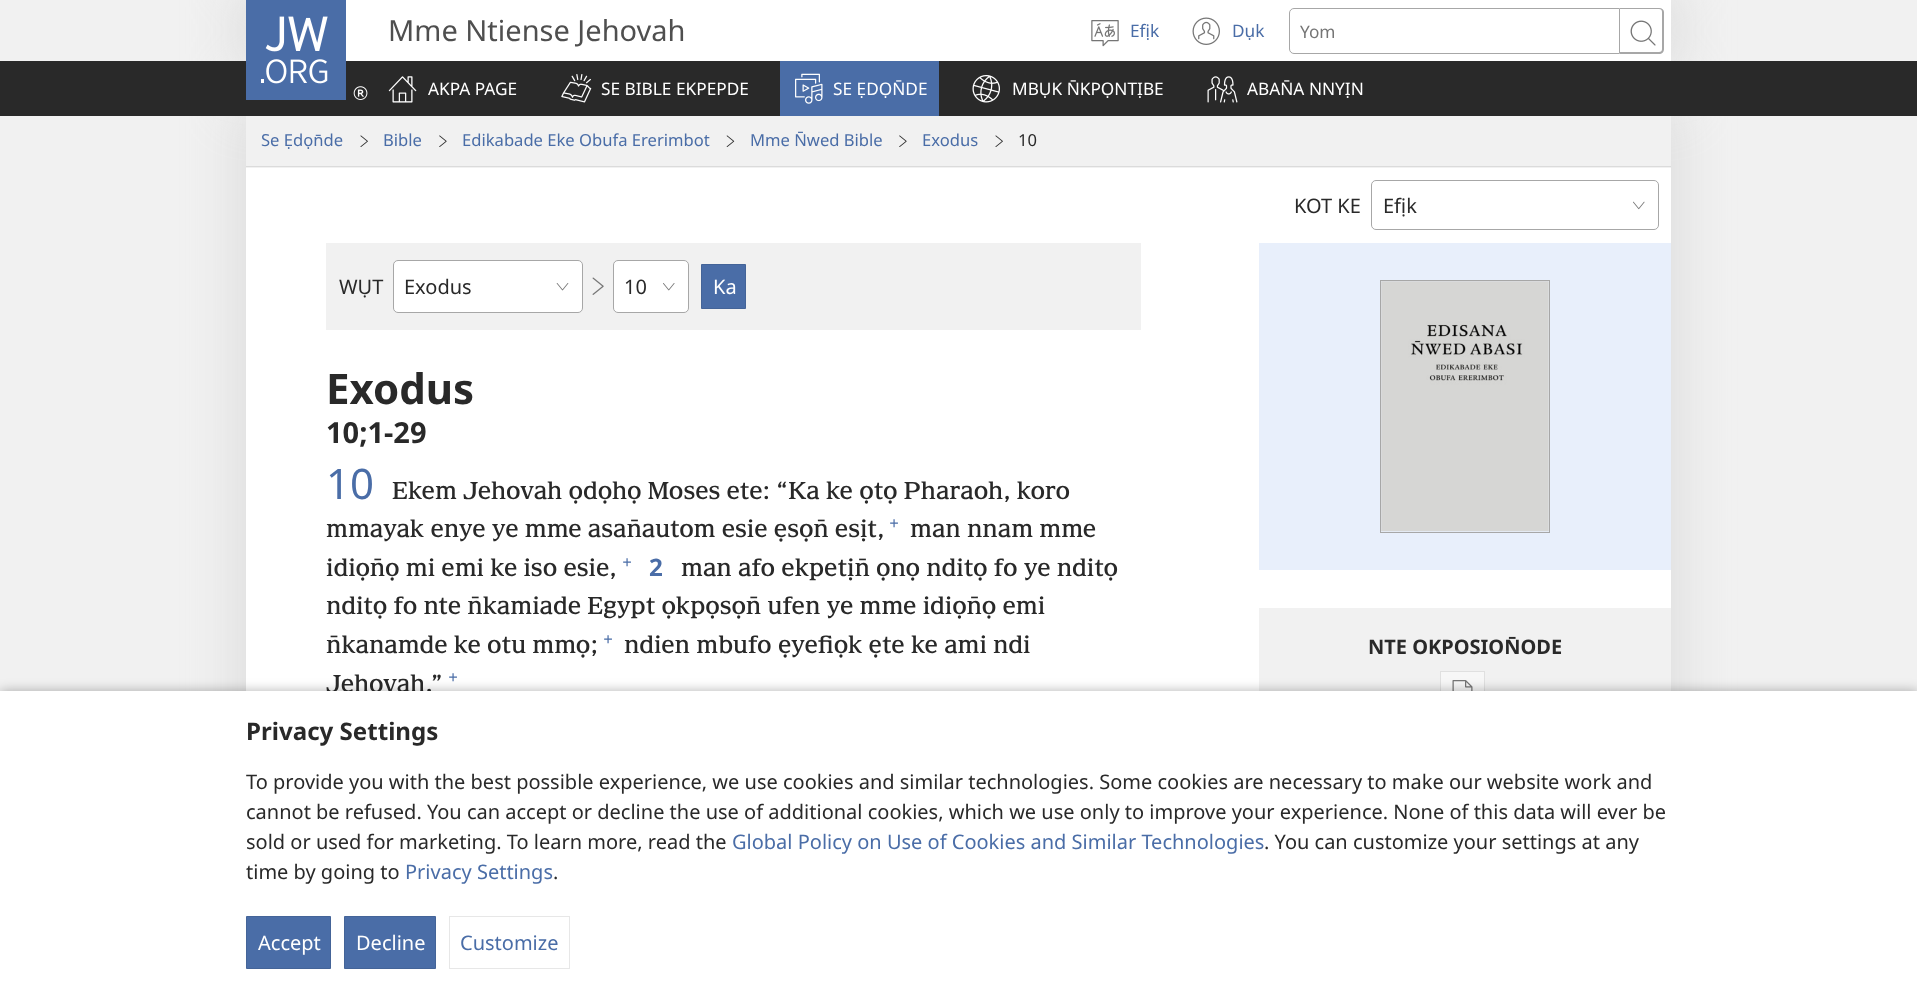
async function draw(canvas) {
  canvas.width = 1917;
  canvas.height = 993;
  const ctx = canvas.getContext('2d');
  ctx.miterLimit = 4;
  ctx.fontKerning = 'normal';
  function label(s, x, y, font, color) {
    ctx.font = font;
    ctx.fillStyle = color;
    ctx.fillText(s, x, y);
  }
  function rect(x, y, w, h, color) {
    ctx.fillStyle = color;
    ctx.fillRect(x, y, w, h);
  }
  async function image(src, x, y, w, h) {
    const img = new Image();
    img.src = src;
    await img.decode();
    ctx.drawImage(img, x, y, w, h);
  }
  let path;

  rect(0, 0, 1917, 993, '#f1f1f1');
  ctx.fillStyle = '#cccccc80';
  ctx.filter = 'blur(25px)';
  ctx.beginPath();
  ctx.rect(236, -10, 1445, 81);
  ctx.fill();
  ctx.filter = 'none';
  rect(346, 0, 1325, 61, '#fff');
  rect(0, 61, 1917, 55, '#292929');
  await image('assets/img2.png', 1091, 20, 28, 27);
  await image('assets/img3.png', 1192, 17, 28, 28);
  ctx.beginPath();
  ctx.roundRect(1289.5, 8.5, 330, 45, [4.5, 0, 0, 4.5]);
  ctx.strokeStyle = '#a7a7a7';
  ctx.stroke();
  ctx.fillStyle = '#a7a7a7';
  path = new Path2D('M1620 8H1659C1662 8 1664 10 1664 12V49C1664 52 1662 54 1659 54H1620ZM1620 9H1659C1661 9 1662 10 1662 12V49C1662 51 1661 52 1659 52H1620Z');
  ctx.fill(path, 'evenodd');
  await image('assets/img4.png', 1630, 20, 26, 26);
  await image('assets/img5.png', 388, 76, 29, 27);
  await image('assets/img6.png', 561, 74, 31, 29);
  rect(780, 61, 159, 55, '#4a6da7');
  await image('assets/img7.png', 795, 73, 28, 31);
  await image('assets/img8.png', 972, 75, 28, 28);
  await image('assets/img9.png', 1207, 76, 31, 27);
  ctx.save();
  ctx.beginPath();
  ctx.rect(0, 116, 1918, 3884);
  ctx.clip();
  ctx.fillStyle = '#cccccc80';
  ctx.filter = 'blur(25px)';
  ctx.beginPath();
  ctx.rect(236, 106, 1445, 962);
  ctx.fill();
  ctx.filter = 'none';
  ctx.restore();
  await image('assets/img1.png', 246, 0, 122, 100);
  label('Mme Ntiense Jehovah', 388, 41, '29px Noto Sans', '#4f4f4f');
  label('Efịk', 1130, 37, '17.25px Noto Sans', '#4a6da7');
  label('Dụk', 1232, 37, '17.25px Noto Sans', '#4a6da7');
  label('Yom', 1300, 38, '17.25px Noto Sans', '#757575');
  label('AKPA PAGE', 428, 95, '17.25px Noto Sans', '#fff');
  label('SE BIBLE EKPEPDE', 601, 95, '17.25px Noto Sans', '#fff');
  label('SE ẸDỌN̄DE', 833, 95, '17.25px Noto Sans', '#fff');
  label('MBỤK N̄KPỌNTỊBE', 1012, 95, '17.25px Noto Sans', '#fff');
  label('ABAN̄A NNYỊN', 1247, 95, '17.25px Noto Sans', '#fff');
  rect(246, 168, 1425, 523, '#fff');
  rect(246, 116, 1425, 52, '#f1f1f1');
  rect(246, 166, 1425, 1, '#dbdbdb');
  label('Se Ẹdọn̄de', 261, 146, '16.6px Noto Sans', '#4a6da7');
  await image('assets/img10.png', 360, 135, 8, 12);
  label('Bible', 383, 146, '16.6px Noto Sans', '#4a6da7');
  await image('assets/img11.png', 439, 135, 8, 12);
  label('Edikabade Eke Obufa Ererimbot', 462, 146, '16.6px Noto Sans', '#4a6da7');
  await image('assets/img12.png', 726, 135, 9, 12);
  label('Mme N̄wed Bible', 750, 146, '16.6px Noto Sans', '#4a6da7');
  await image('assets/img11.png', 899, 135, 8, 12);
  label('Exodus', 922, 146, '16.6px Noto Sans', '#4a6da7');
  await image('assets/img10.png', 995, 135, 8, 12);
  label('10', 1018, 146, '16.6px Noto Sans', '#292929');
  label('KOT KE', 1294, 213, '20px Noto Sans', '#292929');
  ctx.beginPath();
  ctx.roundRect(1371.5, 180.5, 287, 49, 4.5);
  ctx.stroke();
  label('Efịk', 1383, 213, '20px Noto Sans', '#292929');
  await image('assets/img13.png', 1633, 201, 12, 9);
  rect(326, 243, 815, 87, '#f1f1f1');
  label('WỤT', 339, 294, '20px Noto Sans', '#292929');
  ctx.fillStyle = '#fff';
  ctx.beginPath();
  ctx.roundRect(393.5, 260.5, 189, 52, 4.5);
  ctx.fill();
  ctx.stroke();
  label('Exodus', 404, 294, '20px Noto Sans', '#292929');
  await image('assets/img14.png', 556, 283, 13, 8);
  await image('assets/img15.png', 592, 277, 12, 18);
  ctx.fillStyle = '#fff';
  ctx.beginPath();
  ctx.roundRect(613.5, 260.5, 75, 52, 4.5);
  ctx.fill();
  ctx.stroke();
  label('10', 624, 294, '20px Noto Sans', '#292929');
  await image('assets/img16.png', 663, 283, 12, 8);
  ctx.fillStyle = '#4a6da7';
  ctx.beginPath();
  ctx.rect(701.5, 264.5, 44, 44);
  ctx.fill();
  ctx.strokeStyle = '#446498';
  ctx.stroke();
  label('Ka', 713, 294, '20px Noto Sans', '#fff');
  label('Exodus', 326, 404, 'bold 42px Noto Sans', '#292929');
  label('10;1-29', 326, 443, 'bold 29px Noto Sans', '#292929');
  label('10', 326, 499, '42px Noto Sans', '#4a6da7');
  label('Ekem Jehovah ọdọhọ Moses ete: “Ka ke ọtọ Pharaoh, koro', 392, 499, '500 24.1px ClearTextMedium', '#292929');
  label('mmayak enye ye mme asan̄autom esie ẹsọn̄ esịt,', 326, 537, '500 24.1px ClearTextMedium', '#292929');
  label('+', 889, 529, 'italic 16.6px Noto Sans', '#4a6da7');
  label('man nnam mme', 910, 537, '500 24.1px ClearTextMedium', '#292929');
  label('idiọn̄ọ mi emi ke iso esie,', 326, 576, '500 24.1px ClearTextMedium', '#292929');
  label('+', 622, 568, 'italic 16.6px Noto Sans', '#4a6da7');
  label('2', 649, 576, 'bold 24.1px Noto Sans', '#4a6da7');
  label('man afo ekpetịn̄ ọnọ nditọ fo ye nditọ', 681, 576, '500 24.1px ClearTextMedium', '#292929');
  label('nditọ fo nte n̄kamiade Egypt ọkpọsọn̄ ufen ye mme idiọn̄ọ emi', 326, 614, '500 24.1px ClearTextMedium', '#292929');
  label('n̄kanamde ke otu mmọ;', 326, 653, '500 24.1px ClearTextMedium', '#292929');
  label('+', 603, 645, 'italic 16.6px Noto Sans', '#4a6da7');
  label('ndien mbufo ẹyefiọk ẹte ke ami ndi', 624, 653, '500 24.1px ClearTextMedium', '#292929');
  label('Jehovah.”', 326, 692, '500 24.1px ClearTextMedium', '#292929');
  label('+', 448, 683, 'italic 16.6px Noto Sans', '#4a6da7');
  rect(1259, 243, 412, 327, '#e8effb');
  ctx.strokeStyle = '#a7a7a7';
  ctx.strokeRect(1380.5, 280.5, 169, 252);
  await image('assets/img17.png', 1381, 281, 168, 251);
  rect(1259, 608, 412, 83, '#f1f1f1');
  label('NTE OKPOSION̄ODE', 1368, 654, 'bold 20px Noto Sans', '#292929');
  rect(1441, 672, 43, 19, '#f7f7f7');
  ctx.strokeStyle = '#e0e0e0';
  ctx.strokeRect(1440.5, 671.5, 44, 44);
  await image('assets/img18.png', 1452, 680, 21, 11);
  ctx.fillStyle = '#0000004d';
  ctx.filter = 'blur(6px)';
  ctx.beginPath();
  ctx.rect(0, 691, 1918, 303);
  ctx.fill();
  ctx.filter = 'none';
  rect(0, 691, 1917, 302, '#fff');
  label('Privacy Settings', 246, 740, 'bold 24.1px Noto Sans', '#292929');
  label('To provide you with the best possible experience, we use cookies and similar technologies. Some cookies are necessary to make our website work and', 246, 789, '20px Noto Sans', '#292929');
  label('cannot be refused. You can accept or decline the use of additional cookies, which we use only to improve your experience. None of this data will ever be', 246, 819, '20px Noto Sans', '#292929');
  label('sold or used for marketing. To learn more, read the', 246, 849, '20px Noto Sans', '#292929');
  label('Global Policy on Use of Cookies and Similar Technologies', 732, 849, '20px Noto Sans', '#4a6da7');
  label('. You can customize your settings at any', 1264, 849, '20px Noto Sans', '#292929');
  label('time by going to', 246, 879, '20px Noto Sans', '#292929');
  label('Privacy Settings', 405, 879, '20px Noto Sans', '#4a6da7');
  label('.', 553, 879, '20px Noto Sans', '#292929');
  ctx.fillStyle = '#4a6da7';
  ctx.beginPath();
  ctx.rect(246.5, 916.5, 84, 52);
  ctx.fill();
  ctx.strokeStyle = '#446498';
  ctx.stroke();
  label('Accept', 258, 950, '20px Noto Sans', '#fff');
  ctx.fillStyle = '#4a6da7';
  ctx.beginPath();
  ctx.rect(344.5, 916.5, 91, 52);
  ctx.fill();
  ctx.stroke();
  label('Decline', 356, 950, '20px Noto Sans', '#fff');
  ctx.strokeStyle = '#e7e7e7';
  ctx.strokeRect(449.5, 916.5, 120, 52);
  label('Customize', 460, 950, '20px Noto Sans', '#4a6da7');
}

draw(document.querySelector('canvas'));
